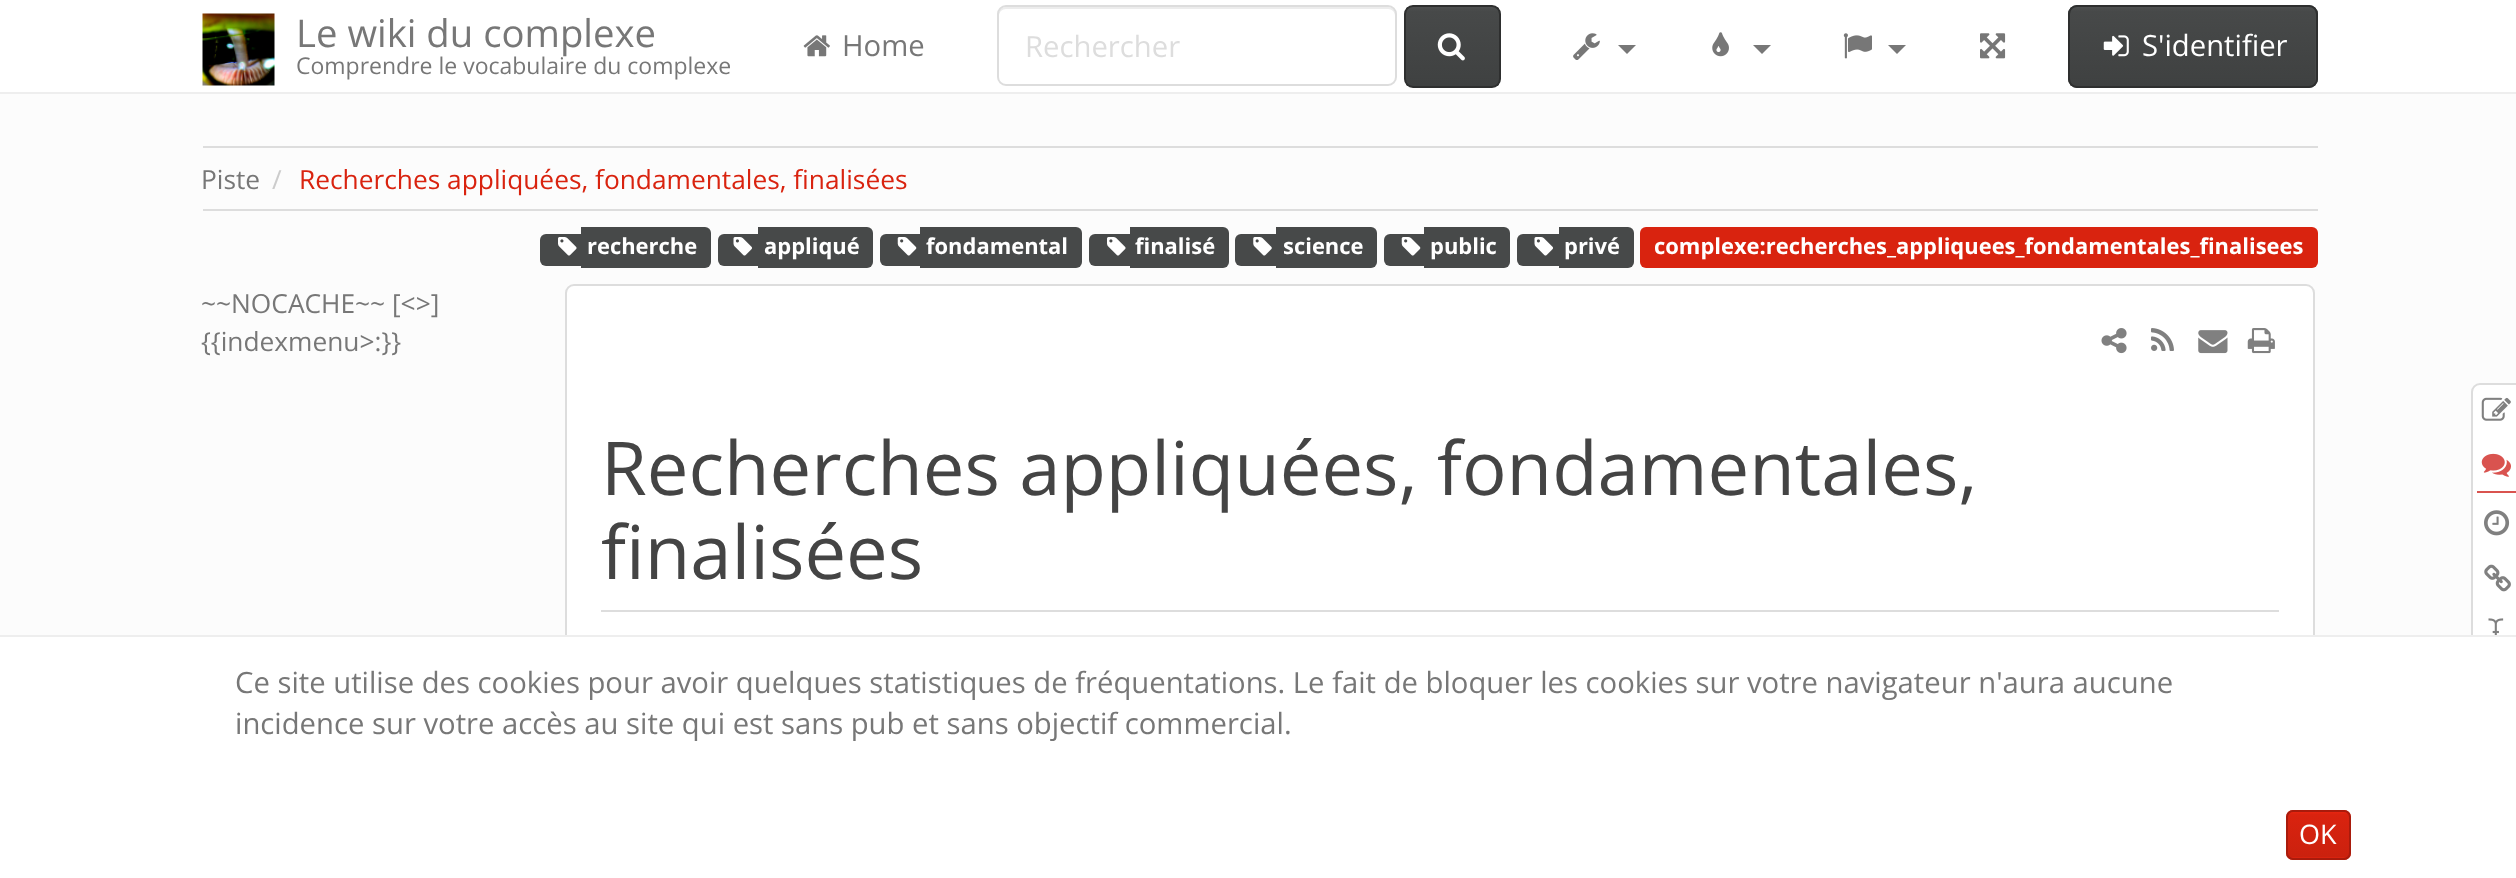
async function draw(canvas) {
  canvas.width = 2516;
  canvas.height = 878;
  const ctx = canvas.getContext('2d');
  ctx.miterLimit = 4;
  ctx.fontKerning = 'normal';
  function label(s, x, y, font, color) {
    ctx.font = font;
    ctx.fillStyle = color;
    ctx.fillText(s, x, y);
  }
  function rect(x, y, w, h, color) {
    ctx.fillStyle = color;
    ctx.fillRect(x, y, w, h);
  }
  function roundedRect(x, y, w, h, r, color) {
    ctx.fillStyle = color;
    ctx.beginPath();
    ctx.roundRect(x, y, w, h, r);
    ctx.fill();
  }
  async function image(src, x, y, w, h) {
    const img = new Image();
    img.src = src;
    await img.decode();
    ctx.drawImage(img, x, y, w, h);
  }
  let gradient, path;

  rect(0, 0, 2516, 878, '#fcfcfc');
  rect(0, 0, 2516, 92, '#fff');
  rect(0, 92, 2516, 2, '#eee');
  await image('assets/img1.png', 202, 13, 73, 73);
  label('Le wiki du complexe', 296, 47, '38.25px Open Sans', '#777');
  label('Comprendre le vocabulaire du complexe', 296, 74, '23px Open Sans', '#777');
  await image('assets/img2.png', 803, 35, 27, 22);
  label('Home', 842, 56, '29.25px Open Sans', '#777');
  ctx.fillStyle = '#ececec';
  path = new Path2D('M1006 9H1388C1392 9 1395 12 1395 16V14C1395 10 1392 7 1388 7H1006C1002 7 999 10 999 14V16C999 12 1002 9 1006 9Z');
  ctx.fill(path);
  ctx.beginPath();
  ctx.roundRect(998, 6, 398, 79, 8);
  ctx.strokeStyle = '#ddd';
  ctx.lineWidth = 2;
  ctx.stroke();
  label('Rechercher', 1025, 57, '29.25px Open Sans', '#ddd');
  ctx.save();
  ctx.beginPath();
  ctx.roundRect(1404, 5, 97, 83, 9);
  ctx.clip();
  gradient = ctx.createLinearGradient(1452, 6.7, 1452, 86);
  gradient.addColorStop(0, '#4f5151');
  gradient.addColorStop(0.06, '#474949');
  gradient.addColorStop(1, '#3f4141');
  ctx.fillStyle = gradient;
  ctx.fillRect(1406, 7, 93, 79);
  ctx.restore();
  ctx.beginPath();
  ctx.roundRect(1405, 6, 95, 81, 8);
  ctx.strokeStyle = '#2e2f2f';
  ctx.stroke();
  await image('assets/img3.png', 1437, 33, 28, 28);
  await image('assets/img4.png', 1573, 33, 27, 27);
  ctx.fillStyle = '#777';
  path = new Path2D('M1618 45H1636L1627 54Z');
  ctx.fill(path);
  await image('assets/img5.png', 1712, 32, 17, 25);
  path = new Path2D('M1753 45H1771L1762 54Z');
  ctx.fill(path);
  await image('assets/img6.png', 1843, 33, 29, 26);
  path = new Path2D('M1888 45H1906L1897 54Z');
  ctx.fill(path);
  await image('assets/img7.png', 1980, 33, 26, 26);
  roundedRect(2068, 5, 250, 83, 9, '#474949');
  ctx.save();
  ctx.beginPath();
  ctx.roundRect(2068, 5, 250, 83, 9);
  ctx.clip();
  gradient = ctx.createLinearGradient(2193, 6.7, 2193, 86);
  gradient.addColorStop(0, '#4f5151');
  gradient.addColorStop(0.06, '#474949');
  gradient.addColorStop(1, '#3f4141');
  ctx.fillStyle = gradient;
  ctx.fillRect(2070, 7, 245, 79);
  ctx.restore();
  ctx.beginPath();
  ctx.roundRect(2069, 6, 248, 81, 8);
  ctx.stroke();
  await image('assets/img8.png', 2103, 35, 26, 22);
  label('S\'identifier', 2142, 56, '29.25px Open Sans', '#fff');
  rect(203, 146, 2115, 2, '#ddd');
  label('Piste', 201, 189, '26.3px Open Sans', '#777');
  label('/', 272, 189, '26.3px Open Sans', '#ccc');
  label('Recherches appliquées, fondamentales, finalisées', 299, 189, '26.3px Open Sans', '#d9230f');
  rect(203, 209, 2115, 2, '#ddd');
  ctx.fillStyle = '#474949';
  ctx.beginPath();
  ctx.roundRect(540, 234, 41, 32, [6, 0, 0, 6]);
  ctx.fill();
  rect(581, 227, 6, 41, '#474949');
  ctx.beginPath();
  ctx.roundRect(587, 227, 124, 41, [0, 6, 6, 0]);
  ctx.fill();
  await image('assets/img9.png', 558, 237, 19, 19);
  label('recherche', 587, 254, 'bold 21.95px Open Sans', '#fff');
  ctx.fillStyle = '#474949';
  ctx.beginPath();
  ctx.roundRect(718, 234, 40, 32, [6, 0, 0, 6]);
  ctx.fill();
  rect(758, 227, 5, 41, '#474949');
  ctx.beginPath();
  ctx.roundRect(763, 227, 110, 41, [0, 6, 6, 0]);
  ctx.fill();
  await image('assets/img10.png', 733, 237, 19, 19);
  label('appliqué', 764, 254, 'bold 21.95px Open Sans', '#fff');
  ctx.fillStyle = '#474949';
  ctx.beginPath();
  ctx.roundRect(880, 234, 40, 32, [6, 0, 0, 6]);
  ctx.fill();
  rect(920, 227, 7, 41, '#474949');
  ctx.beginPath();
  ctx.roundRect(927, 227, 155, 41, [0, 6, 6, 0]);
  ctx.fill();
  await image('assets/img11.png', 897, 237, 20, 19);
  label('fondamental', 926, 254, 'bold 21.95px Open Sans', '#fff');
  ctx.fillStyle = '#474949';
  ctx.beginPath();
  ctx.roundRect(1089, 234, 41, 32, [6, 0, 0, 6]);
  ctx.fill();
  rect(1130, 227, 6, 41, '#474949');
  ctx.beginPath();
  ctx.roundRect(1136, 227, 93, 41, [0, 6, 6, 0]);
  ctx.fill();
  await image('assets/img9.png', 1107, 237, 19, 19);
  label('finalisé', 1135, 254, 'bold 21.95px Open Sans', '#fff');
  ctx.fillStyle = '#474949';
  ctx.beginPath();
  ctx.roundRect(1235, 234, 41, 32, [6, 0, 0, 6]);
  ctx.fill();
  rect(1276, 227, 7, 41, '#474949');
  ctx.beginPath();
  ctx.roundRect(1283, 227, 94, 41, [0, 6, 6, 0]);
  ctx.fill();
  await image('assets/img12.png', 1253, 237, 19, 19);
  label('science', 1283, 254, 'bold 21.95px Open Sans', '#fff');
  ctx.fillStyle = '#474949';
  ctx.beginPath();
  ctx.roundRect(1384, 234, 40, 32, [6, 0, 0, 6]);
  ctx.fill();
  rect(1424, 227, 7, 41, '#474949');
  ctx.beginPath();
  ctx.roundRect(1431, 227, 79, 41, [0, 6, 6, 0]);
  ctx.fill();
  await image('assets/img11.png', 1401, 237, 20, 19);
  label('public', 1430, 254, 'bold 21.95px Open Sans', '#fff');
  ctx.fillStyle = '#474949';
  ctx.beginPath();
  ctx.roundRect(1517, 234, 42, 32, [6, 0, 0, 6]);
  ctx.fill();
  rect(1559, 227, 5, 41, '#474949');
  ctx.beginPath();
  ctx.roundRect(1564, 227, 70, 41, [0, 6, 6, 0]);
  ctx.fill();
  await image('assets/img10.png', 1534, 237, 19, 19);
  label('privé', 1564, 254, 'bold 21.95px Open Sans', '#fff');
  roundedRect(1640, 227, 678, 41, 6, '#d9230f');
  label('complexe:recherches_appliquees_fondamentales_finalisees', 1654, 254, 'bold 21.95px Open Sans', '#fff');
  label('~~NOCACHE~~ [<>]', 201, 313, '26.3px Open Sans', '#777');
  label('{{indexmenu>:}}', 201, 351, '26.3px Open Sans', '#777');
  ctx.fillStyle = '#fff';
  ctx.beginPath();
  ctx.roundRect(566, 285, 1748, 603, 8);
  ctx.fill();
  ctx.strokeStyle = '#ddd';
  ctx.stroke();
  await image('assets/img13.png', 2101, 328, 26, 26);
  await image('assets/img14.png', 2151, 328, 23, 23);
  await image('assets/img15.png', 2198, 330, 30, 24);
  await image('assets/img16.png', 2247, 328, 28, 26);
  rect(601, 610, 1678, 2, '#ddd');
  label('Recherches appliquées, fondamentales,', 601, 495, '74.25px Open Sans', '#444');
  label('finalisées', 601, 579, '74.25px Open Sans', '#444');
  ctx.fillStyle = '#fff';
  ctx.beginPath();
  ctx.roundRect(2472, 384, 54, 277, 8);
  ctx.fill();
  ctx.stroke();
  await image('assets/img17.png', 2481, 397, 30, 24);
  rect(2477, 491, 39, 2, '#d9534f');
  await image('assets/img18.png', 2481, 453, 30, 24);
  await image('assets/img19.png', 2484, 510, 26, 26);
  await image('assets/img20.png', 2484, 564, 27, 28);
  await image('assets/img21.png', 2488, 618, 16, 17);
  rect(0, 637, 2516, 241, '#fff');
  rect(0, 635, 2516, 2, '#eee');
  label('Ce site utilise des cookies pour avoir quelques statistiques de fréquentations. Le fait de bloquer les cookies sur votre navigateur n\'aura aucune', 235, 693, '29.25px Open Sans', '#777');
  label('incidence sur votre accès au site qui est sans pub et sans objectif commercial.', 235, 734, '29.25px Open Sans', '#777');
  roundedRect(2286, 810, 65, 50, 7, '#d9230f');
  gradient = ctx.createLinearGradient(2319, 812, 2319, 857);
  gradient.addColorStop(0, '#e72510');
  gradient.addColorStop(0.06, '#d9230f');
  gradient.addColorStop(1, '#cb210e');
  ctx.fillStyle = gradient;
  ctx.fillRect(2288, 812, 61, 45);
  ctx.beginPath();
  ctx.roundRect(2287, 811, 63, 48, 6);
  ctx.strokeStyle = '#a91b0c';
  ctx.stroke();
  label('OK', 2299, 844, '27px Open Sans', '#fff');
}

draw(document.querySelector('canvas'));
